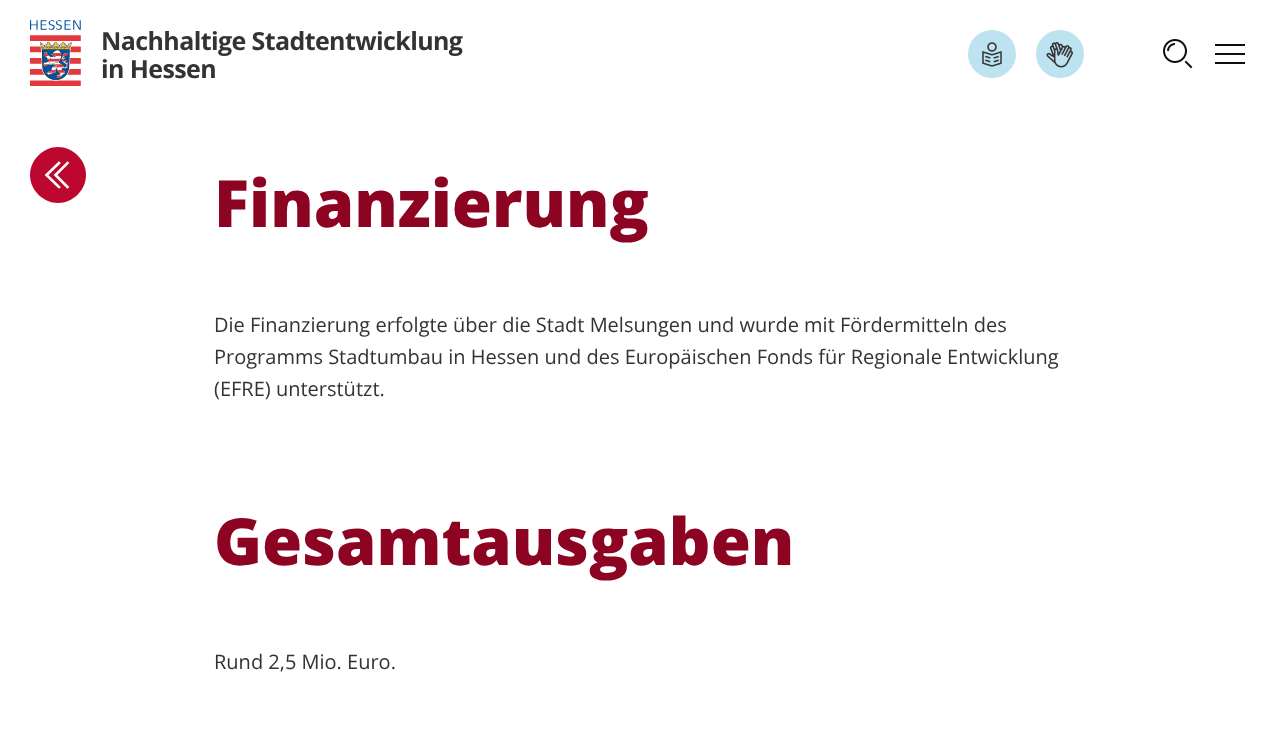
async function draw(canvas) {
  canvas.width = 1276;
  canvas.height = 745;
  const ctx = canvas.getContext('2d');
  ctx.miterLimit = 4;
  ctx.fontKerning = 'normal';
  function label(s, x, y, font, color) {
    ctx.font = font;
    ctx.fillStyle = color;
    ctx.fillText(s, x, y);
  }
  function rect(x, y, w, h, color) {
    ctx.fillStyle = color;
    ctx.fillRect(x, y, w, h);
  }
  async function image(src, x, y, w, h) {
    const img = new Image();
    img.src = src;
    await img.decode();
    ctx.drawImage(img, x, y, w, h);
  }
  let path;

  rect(0, 0, 1276, 745, '#fff');
  await image('assets/img1.png', 30, 20, 51, 66);
  ctx.letterSpacing = '-0.6px';
  label('Nachhaltige Stadtentwicklung', 101, 50, 'bold 25px Open Sans', '#333');
  label('in Hessen', 101, 78, 'bold 25px Open Sans', '#333');
  ctx.fillStyle = '#bde2f0';
  ctx.beginPath();
  ctx.arc(992, 54, 24, 0, 2 * Math.PI);
  ctx.fill();
  await image('assets/img2.png', 982, 42, 20, 25);
  ctx.beginPath();
  ctx.arc(1060, 54, 24, 0, 2 * Math.PI);
  ctx.fill();
  await image('assets/img3.png', 1046, 42, 27, 26);
  await image('assets/img4.png', 1163, 39, 30, 30);
  path = new Path2D('M1216 54H1244M1216 45H1244M1216 63H1244');
  ctx.strokeStyle = '#0e0e0e';
  ctx.lineWidth = 2;
  ctx.lineCap = 'square';
  ctx.stroke(path);
  ctx.fillStyle = '#bc082f';
  path = new Path2D('M30 175C30 160 43 147 58 147C73 147 86 160 86 175C86 190 73 203 58 203C43 203 30 190 30 175Z');
  ctx.fill(path);
  path = new Path2D('M59 187L46.5 175L59 163M67.5 187L55.5 175L67.5 163');
  ctx.strokeStyle = '#fff';
  ctx.lineWidth = 2.6;
  ctx.stroke(path);
  ctx.letterSpacing = '0px';
  label('Finanzierung', 214, 227, '800 65px Open Sans', '#8d0423');
  label('Die Finanzierung erfolgte über die Stadt Melsungen und wurde mit Fördermitteln des', 214, 332, '20px Open Sans', '#333');
  label('Programms Stadtumbau in Hessen und des Europäischen Fonds für Regionale Entwicklung', 214, 364, '20px Open Sans', '#333');
  label('(EFRE) unterstützt.', 214, 396, '20px Open Sans', '#333');
  label('Gesamtausgaben', 214, 565, '800 65px Open Sans', '#8d0423');
  label('Rund 2,5 Mio. Euro.', 214, 669, '20px Open Sans', '#333');
}

draw(document.querySelector('canvas'));
